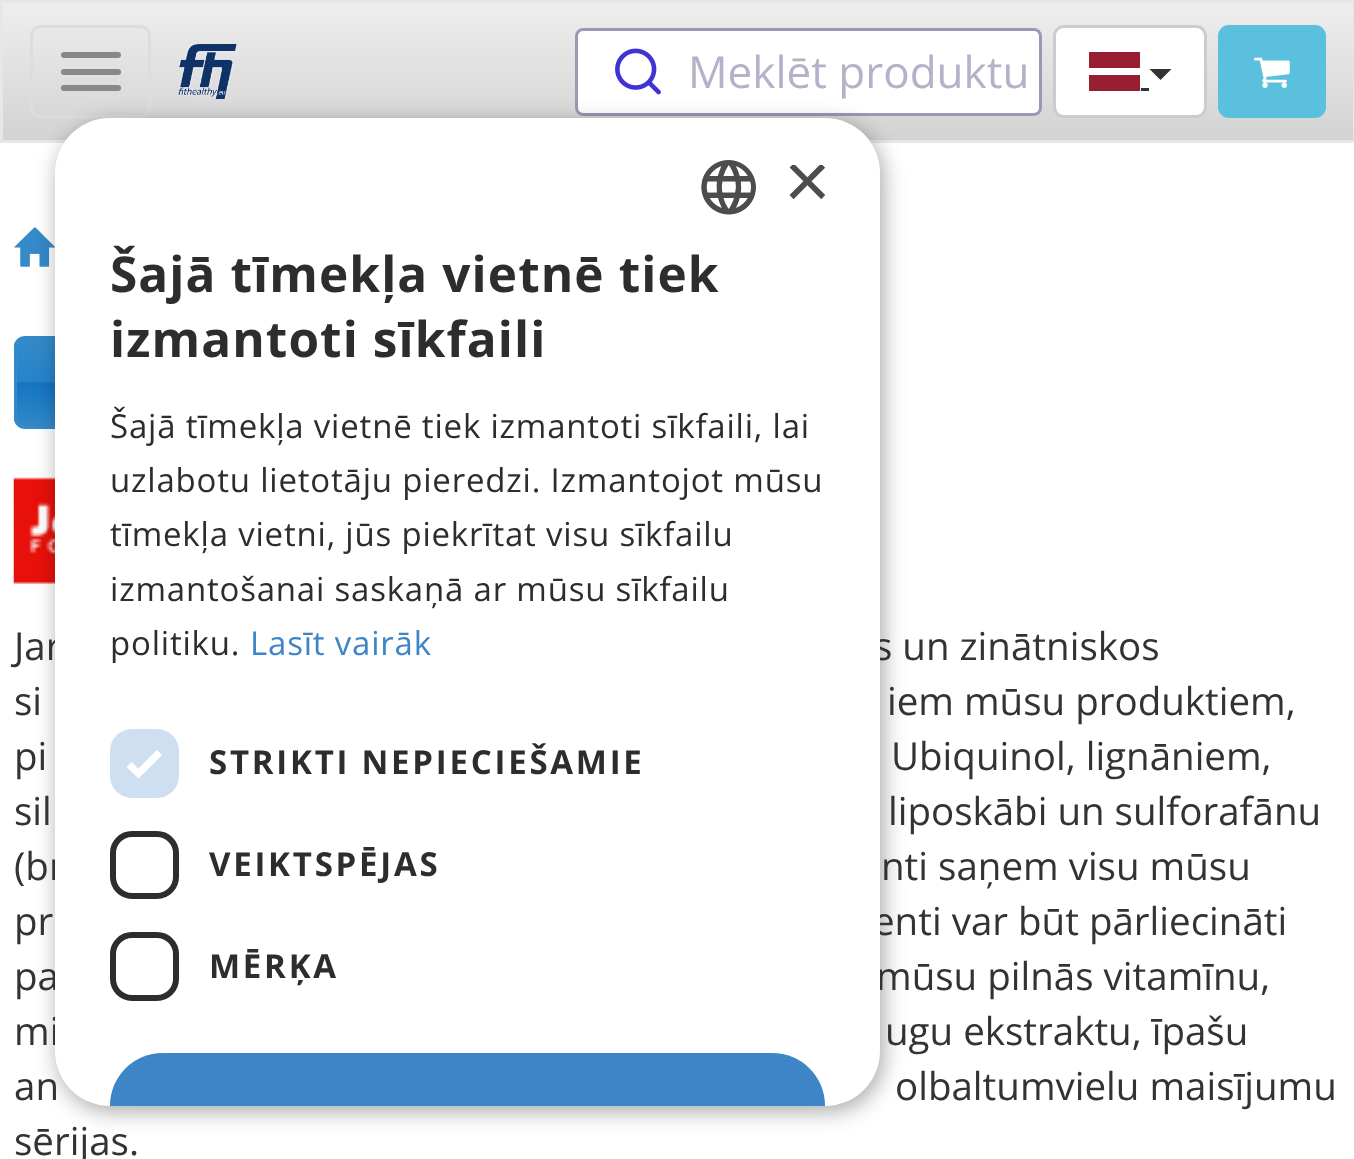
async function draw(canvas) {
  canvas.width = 1354;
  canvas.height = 1159;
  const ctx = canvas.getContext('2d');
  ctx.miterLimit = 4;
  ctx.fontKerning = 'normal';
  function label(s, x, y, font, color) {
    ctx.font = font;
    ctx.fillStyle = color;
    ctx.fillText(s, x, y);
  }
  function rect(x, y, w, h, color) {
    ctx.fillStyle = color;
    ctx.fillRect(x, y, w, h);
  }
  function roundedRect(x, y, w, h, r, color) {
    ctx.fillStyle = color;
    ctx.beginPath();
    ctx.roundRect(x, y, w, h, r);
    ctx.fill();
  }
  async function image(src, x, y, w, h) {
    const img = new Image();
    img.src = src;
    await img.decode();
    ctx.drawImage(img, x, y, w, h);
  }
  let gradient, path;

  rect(0, 0, 1354, 1159, '#fff');
  gradient = ctx.createLinearGradient(678, 2.7, 678, 140);
  gradient.addColorStop(0, '#eee');
  gradient.addColorStop(1, '#d3d3d3');
  ctx.fillStyle = gradient;
  ctx.fillRect(3, 3, 1350, 137);
  ctx.strokeStyle = '#e7e7e7';
  ctx.lineWidth = 3;
  ctx.strokeRect(1.5, 1.5, 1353, 140);
  ctx.beginPath();
  ctx.roundRect(31.5, 26.5, 118, 90, 9.5);
  ctx.strokeStyle = '#ddd';
  ctx.stroke();
  roundedRect(61, 52, 60, 6, 3, '#888');
  roundedRect(61, 69, 60, 6, 3, '#888');
  roundedRect(61, 85, 60, 6, 3, '#888');
  await image('assets/img1.png', 178, 44, 59, 55);
  roundedRect(575, 28, 467, 88, 8, '#fff');
  ctx.beginPath();
  ctx.roundRect(576.5, 29.5, 464, 85, 6.5);
  ctx.strokeStyle = '#807ea3cc';
  ctx.stroke();
  await image('assets/img2.png', 615, 48, 46, 47);
  label('Meklēt produktu', 688, 88, '44px Open Sans', '#b3b2c8');
  ctx.fillStyle = '#fff';
  ctx.beginPath();
  ctx.roundRect(1054.5, 26.5, 151, 90, 9.5);
  ctx.fill();
  ctx.strokeStyle = '#ccc';
  ctx.stroke();
  ctx.fillStyle = '#981e32';
  path = new Path2D('M1089 52H1140V68H1089ZM1089 75H1140V91H1089Z');
  ctx.fill(path, 'evenodd');
  ctx.fillStyle = '#333';
  path = new Path2D('M1149.5 69H1171.5L1160.5 80Z');
  ctx.fill(path);
  rect(1141, 88, 8, 3, '#333');
  ctx.fillStyle = '#5bc0de';
  ctx.beginPath();
  ctx.roundRect(1219.5, 26.5, 105, 90, 9.5);
  ctx.fill();
  ctx.strokeStyle = '#5bc0de';
  ctx.stroke();
  await image('assets/img3.png', 1254, 57, 36, 31);
  await image('assets/img5.png', 14, 227, 41, 40);
  ctx.save();
  ctx.beginPath();
  ctx.roundRect(14, 336, 278, 93, 11);
  ctx.clip();
  gradient = ctx.createLinearGradient(153, 338, 153, 426);
  gradient.addColorStop(0, '#358ac9');
  gradient.addColorStop(0.5, '#2683ca');
  gradient.addColorStop(0.51, '#1375c1');
  gradient.addColorStop(1, '#3388c7');
  ctx.fillStyle = gradient;
  ctx.fillRect(14, 338, 41, 88);
  ctx.restore();
  ctx.beginPath();
  ctx.roundRect(15.5, 337.5, 275, 90, 9.5);
  ctx.strokeStyle = '#358ac9';
  ctx.stroke();
  await image('assets/img6.png', 13, 477, 42, 107);
  ctx.fillStyle = '#00000059';
  ctx.filter = 'blur(11px)';
  ctx.beginPath();
  ctx.roundRect(58, 124, 825, 987, 55);
  ctx.fill();
  ctx.filter = 'none';
  label('Jar', 14, 660, '38.5px Open Sans', '#333');
  label('s un zinātniskos', 874, 660, '38.5px Open Sans', '#333');
  label('(br', 14, 880, '38.5px Open Sans', '#333');
  label('enti var būt pārliecināti', 873, 935, '38.5px Open Sans', '#333');
  label('pa', 14, 990, '38.5px Open Sans', '#333');
  label('mūsu pilnās vitamīnu,', 876, 990, '38.5px Open Sans', '#333');
  label('mi', 14, 1045, '38.5px Open Sans', '#333');
  label('an', 14, 1100, '38.5px Open Sans', '#333');
  roundedRect(55, 118, 825, 988, 55, '#fff');
  await image('assets/img4.png', 701, 160, 55, 55);
  ctx.save();
  ctx.beginPath();
  ctx.rect(784, 165, 41, 41);
  ctx.clip();
  label('×', 784, 208, '80px Liberation Sans', '#4d4d4d');
  ctx.restore();
  ctx.letterSpacing = '1.1px';
  label('Šajā tīmekļa vietnē tiek', 110, 292, 'bold 49.5px Open Sans', '#2d2d2d');
  label('izmantoti sīkfaili', 110, 357, 'bold 49.5px Open Sans', '#2d2d2d');
  ctx.letterSpacing = '0.8px';
  label('Šajā tīmekļa vietnē tiek izmantoti sīkfaili, lai', 110, 438, '33px Open Sans', '#2d2d2d');
  label('uzlabotu lietotāju pieredzi. Izmantojot mūsu', 110, 492, '33px Open Sans', '#2d2d2d');
  label('tīmekļa vietni, jūs piekrītat visu sīkfailu', 110, 546, '33px Open Sans', '#2d2d2d');
  label('izmantošanai saskaņā ar mūsu sīkfailu', 110, 601, '33px Open Sans', '#2d2d2d');
  label('politiku.', 110, 655, '33px Open Sans', '#2d2d2d');
  label('Lasīt vairāk', 250, 655, '33px Open Sans', '#3d85c6');
  roundedRect(110, 729, 69, 69, 22, '#cddff0');
  path = new Path2D('M129 764.5L138.5 773.5L159.5 752.5');
  ctx.strokeStyle = '#fff';
  ctx.lineWidth = 7.2;
  ctx.stroke(path);
  ctx.letterSpacing = '2.75px';
  label('STRIKTI NEPIECIEŠAMIE', 209, 774, 'bold 33px Open Sans', '#2d2d2d');
  ctx.beginPath();
  ctx.roundRect(113, 834, 63, 62, 19);
  ctx.strokeStyle = '#2d2d2d';
  ctx.lineWidth = 6;
  ctx.stroke();
  label('VEIKTSPĒJAS', 209, 876, 'bold 33px Open Sans', '#2d2d2d');
  ctx.beginPath();
  ctx.roundRect(113, 935, 63, 63, 19);
  ctx.stroke();
  label('MĒRĶA', 209, 978, 'bold 33px Open Sans', '#2d2d2d');
  ctx.letterSpacing = '0px';
  label('sērijas.', 14, 1155, '38.5px Open Sans', '#333');
  ctx.save();
  ctx.beginPath();
  ctx.roundRect(55, 118, 825, 988, 55);
  ctx.clip();
  roundedRect(110, 1053, 715, 105, 52.5, '#3d85c6');
  ctx.restore();
  label('si', 14, 715, '38.5px Open Sans', '#333');
  label('iem mūsu produktiem,', 887, 715, '38.5px Open Sans', '#333');
  label('pi', 14, 770, '38.5px Open Sans', '#333');
  label('Ubiquinol, lignāniem,', 891, 770, '38.5px Open Sans', '#333');
  label('sil', 14, 825, '38.5px Open Sans', '#333');
  label('liposkābi un sulforafānu', 888, 825, '38.5px Open Sans', '#333');
  label('nti saņem visu mūsu', 881, 880, '38.5px Open Sans', '#333');
  label('pr', 14, 935, '38.5px Open Sans', '#333');
  label('ugu ekstraktu, īpašu', 885, 1045, '38.5px Open Sans', '#333');
  label('olbaltumvielu maisījumu', 895, 1100, '38.5px Open Sans', '#333');
}

draw(document.querySelector('canvas'));
